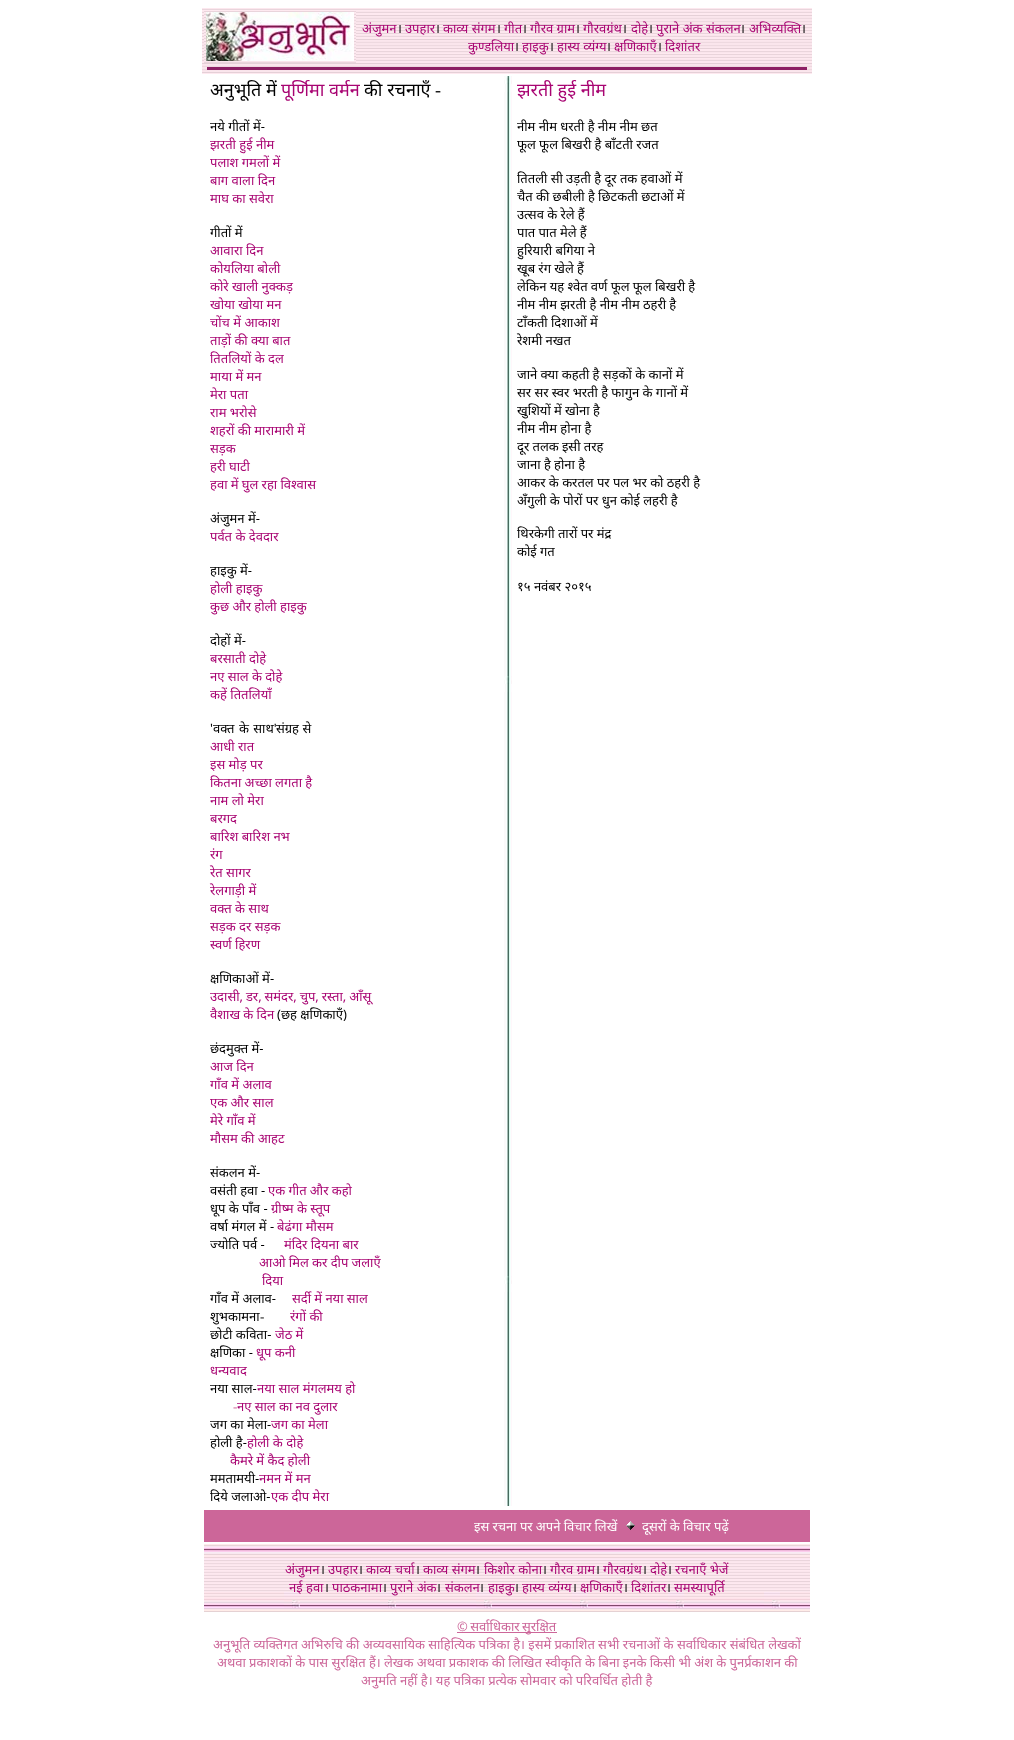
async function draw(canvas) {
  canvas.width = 1014;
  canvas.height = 1740;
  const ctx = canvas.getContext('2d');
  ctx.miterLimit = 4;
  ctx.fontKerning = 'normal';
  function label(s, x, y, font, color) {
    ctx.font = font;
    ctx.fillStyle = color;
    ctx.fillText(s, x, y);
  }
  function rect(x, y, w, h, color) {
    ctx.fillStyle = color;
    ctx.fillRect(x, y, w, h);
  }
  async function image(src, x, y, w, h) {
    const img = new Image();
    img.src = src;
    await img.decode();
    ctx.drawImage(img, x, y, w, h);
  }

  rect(0, 0, 1014, 1740, '#fff');
  await image('assets/img1.png', 202, 8, 610, 66);
  await image('assets/img2.png', 204, 11, 152, 52);
  await image('assets/img3.png', 206, 12, 148, 49);
  label('अंजुमन', 362, 33, '13px Noto Sans', '#a80472');
  label('।', 397, 33, '13px Noto Sans', '#000');
  label('उपहार', 405, 33, '13px Noto Sans', '#a80472');
  label('।', 435, 33, '13px Noto Sans', '#000');
  label('काव्य संगम', 443, 33, '13px Noto Sans', '#a80472');
  label('।', 496, 33, '13px Noto Sans', '#000');
  label('गीत', 504, 33, '13px Noto Sans', '#a80472');
  label('।', 522, 33, '13px Noto Sans', '#000');
  label('गौरव ग्राम', 530, 33, '13px Noto Sans', '#a80472');
  label('।', 575, 33, '13px Noto Sans', '#000');
  label('गौरवग्रंथ', 583, 33, '13px Noto Sans', '#a80472');
  label('।', 622, 33, '13px Noto Sans', '#000');
  label('दोहे', 631, 33, '13px Noto Sans', '#a80472');
  label('।', 648, 33, '13px Noto Sans', '#000');
  label('पुराने अंक संकलन', 656, 33, '13px Noto Sans', '#a80472');
  label('अभिव्यक्ति', 749, 33, '13px Noto Sans', '#a80472');
  label('।', 740, 33, '13px Noto Sans', '#000');
  label('।', 801, 33, '13px Noto Sans', '#000');
  label('कुण्डलिया', 468, 51, '13px Noto Sans', '#a80472');
  label('।', 514, 51, '13px Noto Sans', '#000');
  label('हाइकु', 522, 51, '13px Noto Sans', '#a80472');
  label('।', 549, 51, '13px Noto Sans', '#000');
  label('हास्य व्यंग्य', 557, 51, '13px Noto Sans', '#a80472');
  label('।', 606, 51, '13px Noto Sans', '#000');
  label('क्षणिकाएँ', 614, 51, '13px Noto Sans', '#a80472');
  label('।', 657, 51, '13px Noto Sans', '#000');
  label('दिशांतर', 665, 51, '13px Noto Sans', '#a80472');
  rect(207, 67, 600, 3, '#8d2064');
  label('अनुभूति में', 210, 96, '18px Noto Sans', '#000');
  label('पूर्णिमा वर्मन', 281, 96, '18px Noto Sans', '#a80472');
  label('की रचनाएँ', 364, 96, '18px Noto Sans', '#000');
  label('-', 435, 96, '18px Liberation Serif', '#000');
  label('नये गीतों में-', 210, 131, '13px Noto Sans', '#000');
  label('झरती हुई नीम', 210, 149, '13px Noto Sans', '#a80472');
  label('पलाश गमलों में', 210, 167, '13px Noto Sans', '#a80472');
  label('बाग वाला दिन', 210, 185, '13px Noto Sans', '#a80472');
  label('माघ का सवेरा', 210, 203, '13px Noto Sans', '#a80472');
  label('गीतों में', 210, 237, '13px Noto Sans', '#000');
  label('आवारा दिन', 210, 255, '13px Noto Sans', '#a80472');
  label('कोयलिया बोली', 210, 273, '13px Noto Sans', '#a80472');
  label('कोरे खाली नुक्कड़', 210, 291, '13px Noto Sans', '#a80472');
  label('खोया खोया मन', 210, 309, '13px Noto Sans', '#a80472');
  label('चोंच में आकाश', 210, 327, '13px Noto Sans', '#a80472');
  ctx.wordSpacing = '-0.1px';
  label('ताड़ों की क्या बात', 210, 345, '13px Noto Sans', '#a80472');
  ctx.wordSpacing = '0px';
  label('तितलियों के दल', 210, 363, '13px Noto Sans', '#a80472');
  label('माया में मन', 210, 381, '13px Noto Sans', '#a80472');
  label('मेरा पता', 210, 399, '13px Noto Sans', '#a80472');
  label('राम भरोसे', 210, 417, '13px Noto Sans', '#a80472');
  ctx.wordSpacing = '-0.1px';
  label('शहरों की मारामारी में', 210, 435, '13px Noto Sans', '#a80472');
  ctx.wordSpacing = '0px';
  label('सड़क', 210, 453, '13px Noto Sans', '#a80472');
  label('हरी घाटी', 210, 471, '13px Noto Sans', '#a80472');
  ctx.wordSpacing = '-0.1px';
  label('हवा में घुल रहा विश्वास', 210, 489, '13px Noto Sans', '#a80472');
  ctx.wordSpacing = '0px';
  label('अंजुमन में-', 210, 523, '13px Noto Sans', '#000');
  label('पर्वत के देवदार', 210, 541, '13px Noto Sans', '#a80472');
  label('हाइकु में-', 210, 575, '13px Noto Sans', '#000');
  label('होली हाइकु', 210, 593, '13px Noto Sans', '#a80472');
  ctx.wordSpacing = '-0.1px';
  label('कुछ और होली हाइकु', 210, 611, '13px Noto Sans', '#a80472');
  ctx.wordSpacing = '0px';
  label('दोहों में-', 210, 645, '13px Noto Sans', '#000');
  label('बरसाती दोहे', 210, 663, '13px Noto Sans', '#a80472');
  ctx.wordSpacing = '-0.1px';
  label('नए साल के दोहे', 210, 681, '13px Noto Sans', '#a80472');
  ctx.wordSpacing = '0px';
  label('कहें तितलियाँ', 210, 699, '13px Noto Sans', '#a80472');
  ctx.wordSpacing = '1px';
  label('\'वक्त के साथ\'', 210, 733, '13px Noto Sans', '#000');
  ctx.wordSpacing = '0px';
  label('संग्रह से', 276, 733, '13px Noto Sans', '#000');
  label('आधी रात', 210, 751, '13px Noto Sans', '#a80472');
  label('इस मोड़ पर', 210, 769, '13px Noto Sans', '#a80472');
  ctx.wordSpacing = '-0.1px';
  label('कितना अच्छा लगता है', 210, 787, '13px Noto Sans', '#a80472');
  ctx.wordSpacing = '0px';
  label('नाम लो मेरा', 210, 805, '13px Noto Sans', '#a80472');
  label('बरगद', 210, 823, '13px Noto Sans', '#a80472');
  label('बारिश बारिश नभ', 210, 841, '13px Noto Sans', '#a80472');
  label('रंग', 210, 859, '13px Noto Sans', '#a80472');
  label('रेत सागर', 210, 877, '13px Noto Sans', '#a80472');
  label('रेलगाड़ी में', 210, 895, '13px Noto Sans', '#a80472');
  label('वक्त के साथ', 210, 913, '13px Noto Sans', '#a80472');
  label('सड़क दर सड़क', 210, 931, '13px Noto Sans', '#a80472');
  label('स्वर्ण हिरण', 210, 949, '13px Noto Sans', '#a80472');
  label('क्षणिकाओं में-', 210, 983, '13px Noto Sans', '#000');
  ctx.wordSpacing = '-0.5px';
  label('उदासी, डर, समंदर, चुप, रस्ता, आँसू', 210, 1001, '13px Noto Sans', '#a80472');
  ctx.wordSpacing = '-0.1px';
  label('वैशाख के दिन', 210, 1019, '13px Noto Sans', '#a80472');
  ctx.wordSpacing = '0px';
  label('(छह क्षणिकाएँ)', 277, 1019, '13px Noto Sans', '#000');
  label('छंदमुक्त में-', 210, 1053, '13px Noto Sans', '#000');
  label('आज दिन', 210, 1071, '13px Noto Sans', '#a80472');
  label('गाँव में अलाव', 210, 1089, '13px Noto Sans', '#a80472');
  label('एक और साल', 210, 1107, '13px Noto Sans', '#a80472');
  label('मेरे गाँव में', 210, 1125, '13px Noto Sans', '#a80472');
  label('मौसम की आहट', 210, 1143, '13px Noto Sans', '#a80472');
  label('संकलन में-', 210, 1177, '13px Noto Sans', '#000');
  label('वसंती हवा -', 210, 1195, '13px Noto Sans', '#000');
  ctx.wordSpacing = '-0.1px';
  label('एक गीत और कहो', 268, 1195, '13px Noto Sans', '#a80472');
  ctx.wordSpacing = '0px';
  label('धूप के पाँव -', 210, 1213, '13px Noto Sans', '#000');
  label('ग्रीष्म के स्तूप', 271, 1213, '13px Noto Sans', '#a80472');
  label('वर्षा मंगल में -', 210, 1231, '13px Noto Sans', '#000');
  label('बेढंगा मौसम', 277, 1231, '13px Noto Sans', '#a80472');
  label('ज्योति पर्व -', 210, 1249, '13px Noto Sans', '#000');
  label('मंदिर दियना बार', 284, 1249, '13px Noto Sans', '#a80472');
  ctx.wordSpacing = '-0.1px';
  label('आओ मिल कर दीप जलाएँ', 259, 1267, '13px Noto Sans', '#a80472');
  ctx.wordSpacing = '0px';
  label('दिया', 262, 1285, '13px Noto Sans', '#a80472');
  label('गाँव में अलाव-', 210, 1303, '13px Noto Sans', '#000');
  ctx.wordSpacing = '-0.1px';
  label('सर्दी में नया साल', 292, 1303, '13px Noto Sans', '#a80472');
  ctx.wordSpacing = '0px';
  label('शुभकामना', 210, 1321, '13px Noto Sans', '#000');
  label('-', 260, 1321, '13px Liberation Serif', '#000');
  label('रंगों की', 290, 1321, '13px Noto Sans', '#a80472');
  label('छोटी कविता-', 210, 1339, '13px Noto Sans', '#000');
  label('जेठ में', 275, 1339, '13px Noto Sans', '#a80472');
  label('क्षणिका -', 210, 1357, '13px Noto Sans', '#000');
  label('धूप कनी', 256, 1357, '13px Noto Sans', '#a80472');
  label('धन्यवाद', 210, 1375, '13px Noto Sans', '#a80472');
  label('नया साल-', 210, 1393, '13px Noto Sans', '#000');
  ctx.wordSpacing = '-0.1px';
  label('नया साल मंगलमय हो', 257, 1393, '13px Noto Sans', '#a80472');
  ctx.wordSpacing = '0px';
  label('-', 233, 1411, '13px Liberation Serif', '#c69');
  ctx.wordSpacing = '-0.1px';
  label('नए साल का नव दुलार', 237, 1411, '13px Noto Sans', '#a80472');
  ctx.wordSpacing = '0px';
  label('जग का मेला-', 210, 1429, '13px Noto Sans', '#000');
  label('जग का मेला', 271, 1429, '13px Noto Sans', '#a80472');
  label('होली है-', 210, 1447, '13px Noto Sans', '#000');
  label('होली के दोहे', 247, 1447, '13px Noto Sans', '#a80472');
  ctx.wordSpacing = '-0.1px';
  label('कैमरे में कैद होली', 230, 1465, '13px Noto Sans', '#a80472');
  ctx.wordSpacing = '0px';
  label('ममतामयी-', 210, 1483, '13px Noto Sans', '#000');
  label('नमन में मन', 259, 1483, '13px Noto Sans', '#a80472');
  label('दिये जलाओ-', 210, 1501, '13px Noto Sans', '#000');
  label('एक दीप मेरा', 271, 1501, '13px Noto Sans', '#a80472');
  await image('assets/img4.png', 504, 76, 8, 1430);
  label('झरती हुई नीम', 517, 96, '18px Noto Sans', '#a80472');
  ctx.wordSpacing = '-0.1px';
  label('नीम नीम धरती है नीम नीम छत', 517, 131, '13px Noto Sans', '#000');
  label('फूल फूल बिखरी है बाँटती रजत', 517, 149, '13px Noto Sans', '#000');
  label('तितली सी उड़ती है दूर तक हवाओं में', 517, 183, '13px Noto Sans', '#000');
  label('चैत की छबीली है छिटकती छटाओं में', 517, 201, '13px Noto Sans', '#000');
  label('उत्सव के रेले हैं', 517, 219, '13px Noto Sans', '#000');
  label('पात पात मेले हैं', 517, 237, '13px Noto Sans', '#000');
  label('हुरियारी बगिया ने', 517, 255, '13px Noto Sans', '#000');
  label('खूब रंग खेले हैं', 517, 273, '13px Noto Sans', '#000');
  label('लेकिन यह श्वेत वर्ण फूल फूल बिखरी है', 517, 291, '13px Noto Sans', '#000');
  label('नीम नीम झरती है नीम नीम ठहरी है', 517, 309, '13px Noto Sans', '#000');
  label('टाँकती दिशाओं में', 517, 327, '13px Noto Sans', '#000');
  label('रेशमी नखत', 517, 345, '13px Noto Sans', '#000');
  label('जाने क्या कहती है सड़कों के कानों में', 517, 379, '13px Noto Sans', '#000');
  label('सर सर स्वर भरती है फागुन के गानों में', 517, 397, '13px Noto Sans', '#000');
  label('खुशियों में खोना है', 517, 415, '13px Noto Sans', '#000');
  label('नीम नीम होना है', 517, 433, '13px Noto Sans', '#000');
  label('दूर तलक इसी तरह', 517, 451, '13px Noto Sans', '#000');
  label('जाना है होना है', 517, 469, '13px Noto Sans', '#000');
  label('आकर के करतल पर पल भर को ठहरी है', 517, 487, '13px Noto Sans', '#000');
  label('अँगुली के पोरों पर धुन कोई लहरी है', 517, 505, '13px Noto Sans', '#000');
  label('थिरकेगी तारों पर मंद्र', 517, 538, '13px Noto Sans', '#000');
  label('कोई गत', 517, 556, '13px Noto Sans', '#000');
  ctx.wordSpacing = '0px';
  label('१५ नवंबर २०१५', 517, 591, '13px Noto Sans', '#000');
  rect(204, 1510, 606, 32, '#c69');
  ctx.wordSpacing = '-0.1px';
  label('इस रचना पर अपने विचार लिखें', 474, 1531, '13px Noto Sans', '#fff');
  await image('assets/img5.png', 626, 1521, 9, 9);
  label('दूसरों के विचार', 642, 1531, '13px Noto Sans', '#fff');
  ctx.wordSpacing = '0px';
  label('पढ़ें', 714, 1531, '13px Noto Sans', '#fff');
  await image('assets/img6.png', 204, 1544, 606, 68);
  label('अंजुमन', 285, 1574, '13px Noto Sans', '#a80472');
  label('।', 320, 1574, '13px Noto Sans', '#000');
  label('उपहार', 328, 1574, '13px Noto Sans', '#a80472');
  label('।', 358, 1574, '13px Noto Sans', '#000');
  label('काव्य चर्चा', 366, 1574, '13px Noto Sans', '#a80472');
  label('।', 415, 1574, '13px Noto Sans', '#000');
  label('काव्य संगम', 423, 1574, '13px Noto Sans', '#a80472');
  label('।', 475, 1574, '13px Noto Sans', '#000');
  label('किशोर कोना', 484, 1574, '13px Noto Sans', '#a80472');
  label('।', 542, 1574, '13px Noto Sans', '#000');
  label('गौरव ग्राम', 550, 1574, '13px Noto Sans', '#a80472');
  label('।', 595, 1574, '13px Noto Sans', '#000');
  label('गौरवग्रंथ', 603, 1574, '13px Noto Sans', '#a80472');
  label('।', 642, 1574, '13px Noto Sans', '#000');
  label('दोहे', 650, 1574, '13px Noto Sans', '#a80472');
  label('।', 667, 1574, '13px Noto Sans', '#000');
  label('रचनाएँ भेजें', 675, 1574, '13px Noto Sans', '#a80472');
  label('नई हवा', 289, 1592, '13px Noto Sans', '#a80472');
  label('।', 324, 1592, '13px Noto Sans', '#000');
  label('पाठकनामा', 332, 1592, '13px Noto Sans', '#a80472');
  label('।', 382, 1592, '13px Noto Sans', '#000');
  label('पुराने अंक', 390, 1592, '13px Noto Sans', '#a80472');
  label('संकलन', 445, 1592, '13px Noto Sans', '#a80472');
  label('हास्य व्यंग्य', 522, 1592, '13px Noto Sans', '#a80472');
  label('क्षणिकाएँ', 580, 1592, '13px Noto Sans', '#a80472');
  label('दिशांतर', 631, 1592, '13px Noto Sans', '#a80472');
  label('समस्यापूर्ति', 674, 1592, '13px Noto Sans', '#a80472');
  label('।', 436, 1592, '13px Noto Sans', '#000');
  label('।', 479, 1592, '13px Noto Sans', '#000');
  label('हाइकु', 488, 1592, '13px Noto Sans', '#a80472');
  label('।', 514, 1592, '13px Noto Sans', '#000');
  label('।', 572, 1592, '13px Noto Sans', '#000');
  label('।', 623, 1592, '13px Noto Sans', '#000');
  label('।', 666, 1592, '13px Noto Sans', '#000');
  rect(457, 1632, 100, 1, '#c69');
  ctx.wordSpacing = '-1px';
  label('© सर्वाधिकार सुरक्षित', 457, 1631, '13px Noto Sans', '#c69');
  ctx.wordSpacing = '0px';
  label('अनुभूति व्यक्तिगत', 213, 1649, '13px Noto Sans', '#c69');
  ctx.wordSpacing = '-0.1px';
  label('अभिरुचि की अव्यवसायिक साहित्यिक पत्रिका है। इसमें प्रकाशित सभी रचनाओं के', 301, 1649, '13px Noto Sans', '#c69');
  ctx.wordSpacing = '0px';
  label('सर्वाधिकार संबंधित लेखकों', 677, 1649, '13px Noto Sans', '#c69');
  ctx.wordSpacing = '-0.1px';
  label('अथवा प्रकाशकों के पास सुरक्षित हैं। लेखक अथवा प्रकाशक की लिखित स्वीकृति के बिना इनके किसी भी अंश के पुनर्प्रकाशन की', 217, 1667, '13px Noto Sans', '#c69');
  label('अनुमति नहीं है। यह पत्रिका प्रत्येक सोमवार को परिवर्धित होती है', 361, 1685, '13px Noto Sans', '#c69');
}

draw(document.querySelector('canvas'));
